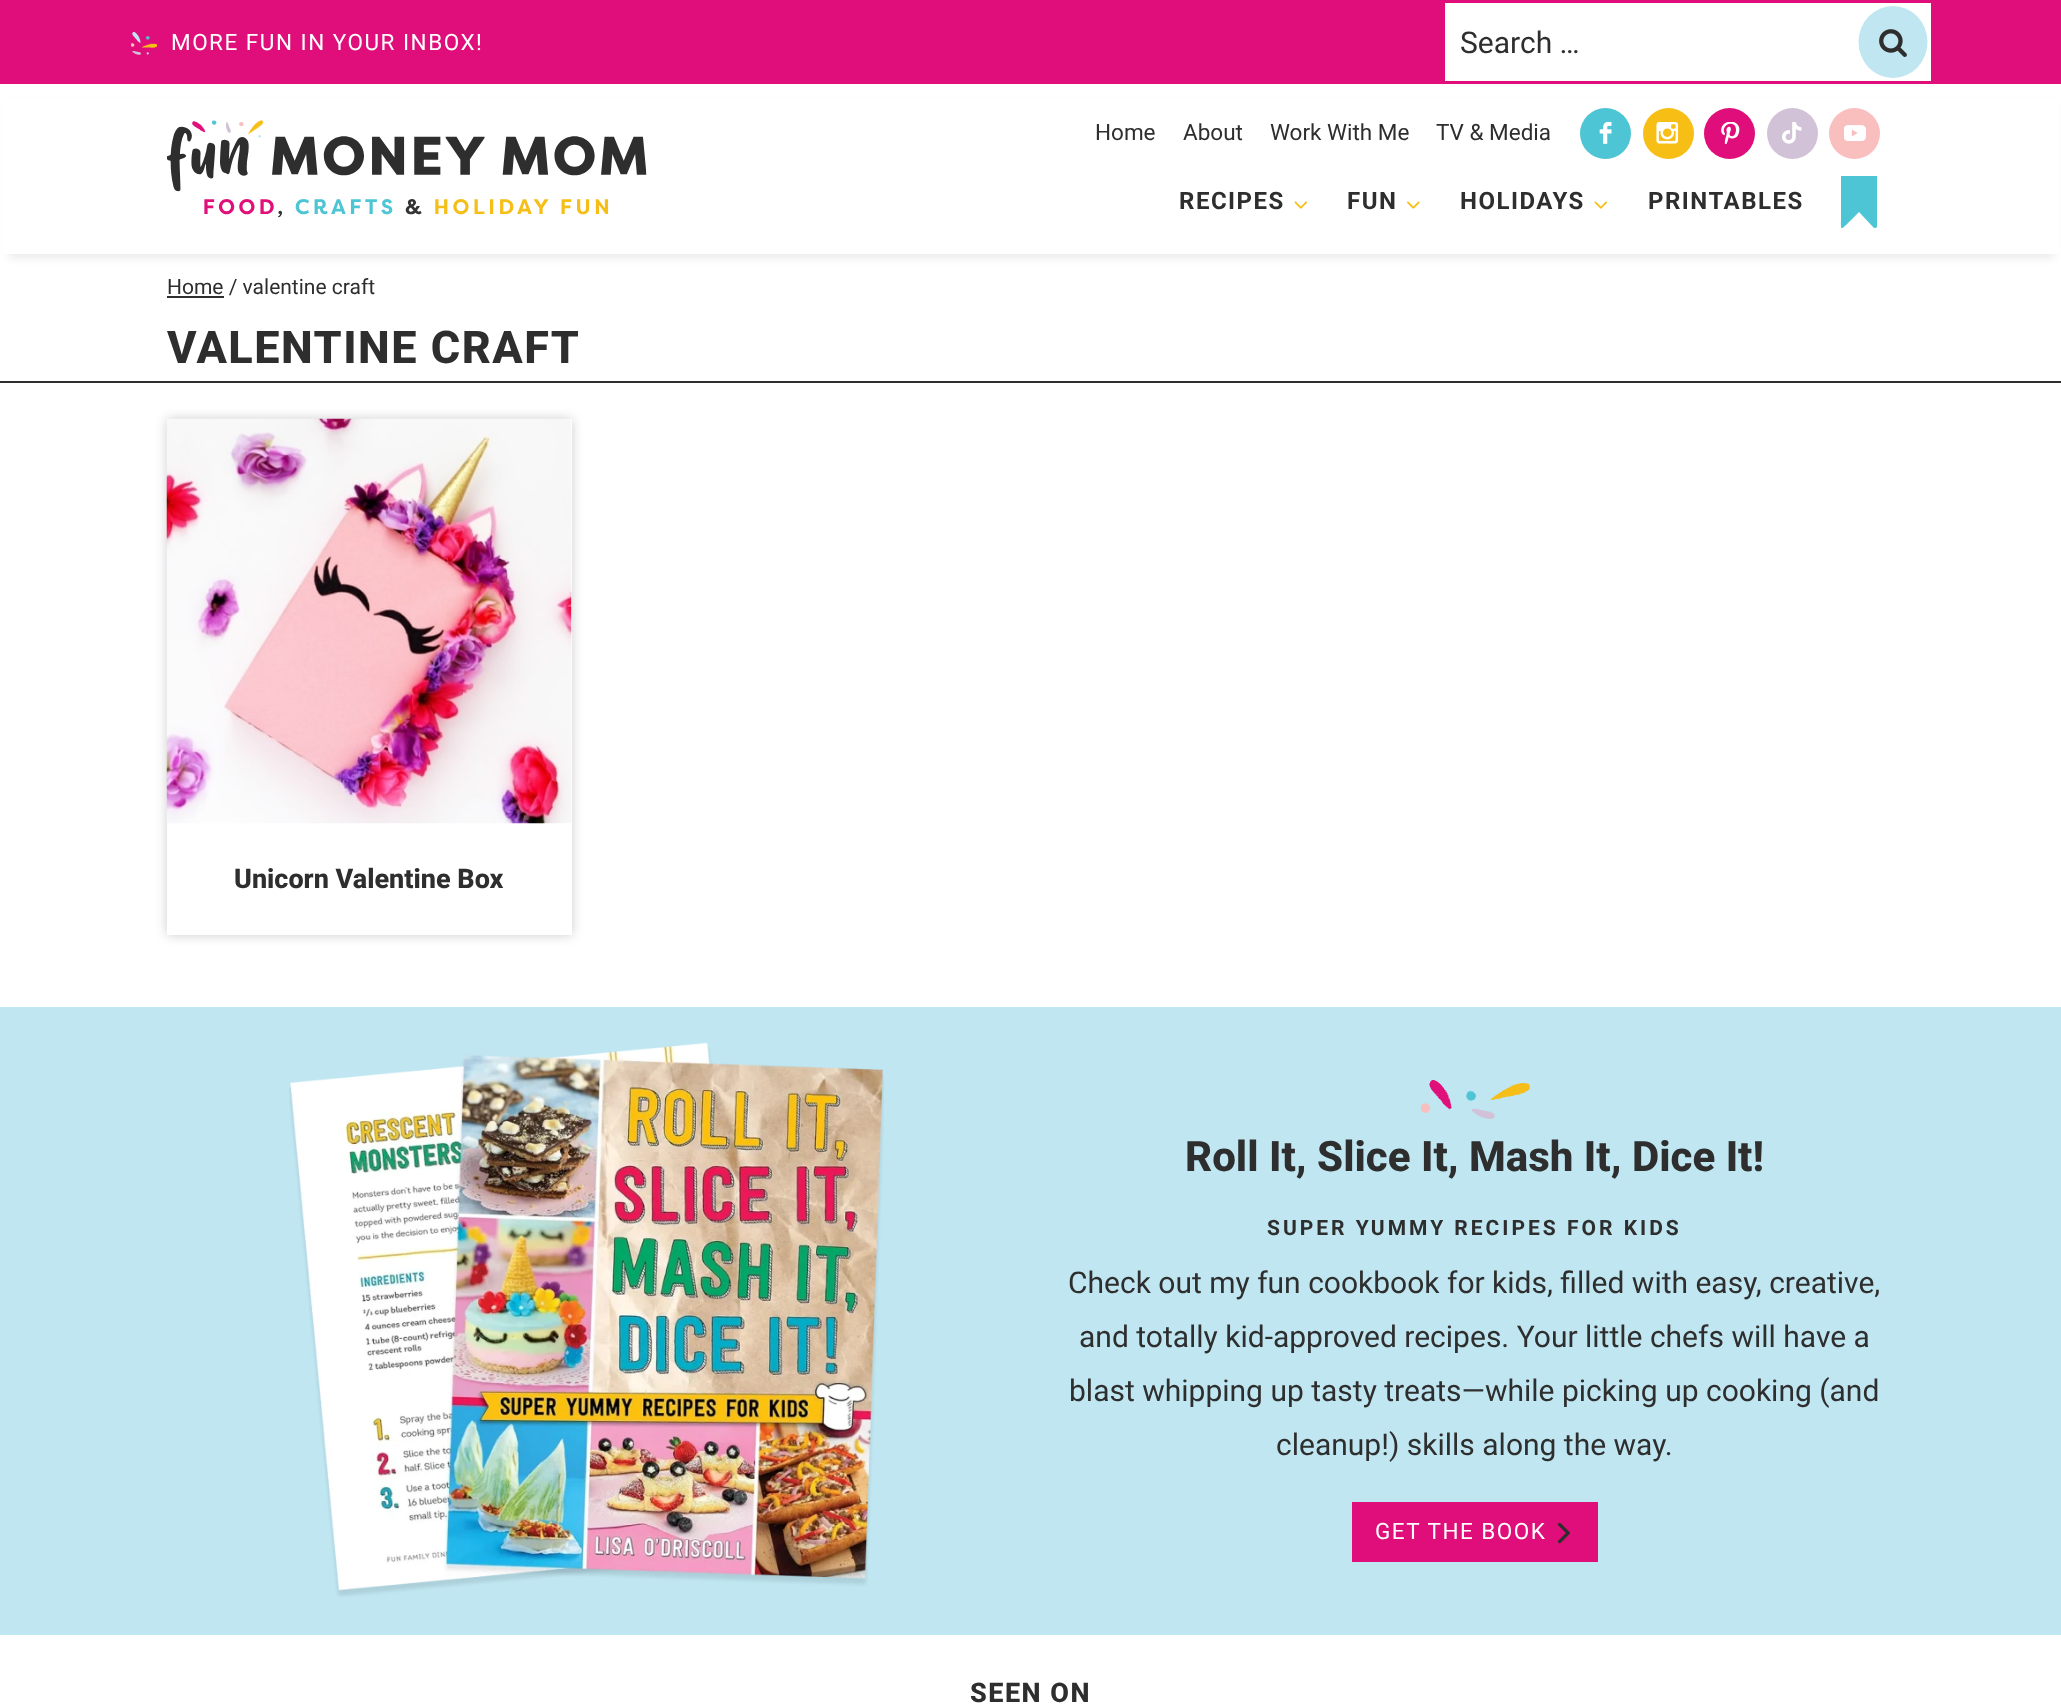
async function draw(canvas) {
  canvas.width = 2061;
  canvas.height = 1708;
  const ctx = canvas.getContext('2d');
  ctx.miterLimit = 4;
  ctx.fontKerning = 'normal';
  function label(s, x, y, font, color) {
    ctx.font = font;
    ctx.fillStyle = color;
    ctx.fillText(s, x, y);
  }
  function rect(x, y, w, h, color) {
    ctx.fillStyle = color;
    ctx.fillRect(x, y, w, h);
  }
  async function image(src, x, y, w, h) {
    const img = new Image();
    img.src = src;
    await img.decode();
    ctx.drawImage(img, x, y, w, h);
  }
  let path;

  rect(0, 0, 2061, 1708, '#fff');
  rect(0, 0, 2061, 84, '#e00e7a');
  await image('assets/img1.png', 131, 32, 27, 23);
  ctx.letterSpacing = '1.5px';
  label('MORE FUN IN YOUR INBOX!', 171, 50, '22.5px Roboto', '#fff');
  rect(1445, 3, 486, 78, '#fff');
  ctx.fillStyle = '#bfe6f1';
  ctx.beginPath();
  ctx.ellipse(1893, 42, 34.5, 36, 0, 0, 2 * Math.PI);
  ctx.fill();
  ctx.letterSpacing = '0px';
  label('Search …', 1460, 53, '30px Roboto', '#2e2e2e');
  await image('assets/img2.png', 1879, 29, 28, 28);
  ctx.fillStyle = '#00000014';
  ctx.filter = 'blur(4px)';
  ctx.beginPath();
  ctx.rect(8, 104, 2046, 154);
  ctx.fill();
  ctx.filter = 'none';
  rect(3, 99, 2056, 155, '#fff');
  await image('assets/img3.png', 167, 120, 480, 98);
  label('Home', 1095, 140, '22.5px Roboto', '#2e2e2e');
  label('About', 1183, 140, '22.5px Roboto', '#2e2e2e');
  label('Work With Me', 1270, 140, '22.5px Roboto', '#2e2e2e');
  label('TV & Media', 1436, 140, '22.5px Roboto', '#2e2e2e');
  ctx.fillStyle = '#4dc5d5';
  ctx.beginPath();
  ctx.arc(1605.5, 133.5, 25.5, 0, 2 * Math.PI);
  ctx.fill();
  await image('assets/img4.png', 1599, 122, 13, 22);
  ctx.fillStyle = '#f7be16';
  ctx.beginPath();
  ctx.arc(1668.5, 133.5, 25.5, 0, 2 * Math.PI);
  ctx.fill();
  await image('assets/img5.png', 1656, 122, 23, 22);
  ctx.fillStyle = '#e00e7a';
  ctx.beginPath();
  ctx.arc(1729.5, 133.5, 25.5, 0, 2 * Math.PI);
  ctx.fill();
  await image('assets/img6.png', 1721, 122, 19, 22);
  ctx.fillStyle = '#d1c2d7';
  ctx.beginPath();
  ctx.arc(1792.5, 133.5, 25.5, 0, 2 * Math.PI);
  ctx.fill();
  await image('assets/img7.png', 1782, 122, 20, 22);
  ctx.fillStyle = '#f9bebe';
  ctx.beginPath();
  ctx.arc(1854.5, 133.5, 25.5, 0, 2 * Math.PI);
  ctx.fill();
  await image('assets/img8.png', 1844, 125, 22, 16);
  ctx.letterSpacing = '1.5px';
  label('RECIPES', 1179, 209, 'bold 24px Roboto', '#2e2e2e');
  await image('assets/img9.png', 1294, 201, 13, 8);
  label('FUN', 1347, 209, 'bold 24px Roboto', '#2e2e2e');
  await image('assets/img10.png', 1407, 201, 13, 8);
  label('HOLIDAYS', 1460, 209, 'bold 24px Roboto', '#2e2e2e');
  await image('assets/img9.png', 1594, 201, 13, 8);
  label('PRINTABLES', 1648, 209, 'bold 24px Roboto', '#2e2e2e');
  ctx.fillStyle = '#4dc5d5';
  path = new Path2D('M1877 176H1841V218C1841 228 1840 231 1846 225L1859 212L1874 228C1875 228 1876 228 1877 227Z');
  ctx.fill(path);
  rect(0, 381, 2061, 2, '#2e2e2e');
  ctx.letterSpacing = '0px';
  label('Home / valentine craft', 167, 294, '21px Roboto', '#2e2e2e');
  rect(167, 296, 57, 2, '#2e2e2e');
  ctx.letterSpacing = '1.5px';
  label('VALENTINE CRAFT', 167, 363, '800 45px Roboto', '#2e2e2e');
  ctx.fillStyle = '#00000033';
  ctx.filter = 'blur(6px)';
  ctx.beginPath();
  ctx.rect(167, 419, 405, 516);
  ctx.fill();
  ctx.filter = 'none';
  rect(167, 419, 405, 516, '#fff');
  await image('assets/img11.png', 166, 418, 406, 406);
  ctx.letterSpacing = '0px';
  label('Unicorn Valentine Box', 234, 888, '800 27px Roboto', '#2e2e2e');
  rect(0, 1007, 2061, 628, '#bfe6f1');
  await image('assets/img12.png', 289, 1042, 595, 555);
  await image('assets/img13.png', 1421, 1080, 109, 39);
  label('Roll It, Slice It, Mash It, Dice It!', 1185, 1171, '800 42px Roboto', '#2e2e2e');
  ctx.letterSpacing = '3px';
  label('SUPER YUMMY RECIPES FOR KIDS', 1267, 1235, 'bold 21px Roboto', '#2e2e2e');
  ctx.letterSpacing = '0px';
  label('Check out my fun cookbook for kids, filled with easy, creative,', 1068, 1293, '30px Roboto', '#2e2e2e');
  label('and totally kid-approved recipes. Your little chefs will have a', 1079, 1347, '30px Roboto', '#2e2e2e');
  label('blast whipping up tasty treats—while picking up cooking (and', 1069, 1401, '30px Roboto', '#2e2e2e');
  label('cleanup!) skills along the way.', 1276, 1455, '30px Roboto', '#2e2e2e');
  rect(1352, 1502, 246, 60, '#e00e7a');
  ctx.letterSpacing = '1.5px';
  label('GET THE BOOK', 1375, 1539, '22.5px Roboto', '#fff');
  await image('assets/img14.png', 1557, 1523, 13, 21);
  label('SEEN ON', 970, 1702, '800 27px Roboto', '#2e2e2e');
}

draw(document.querySelector('canvas'));
